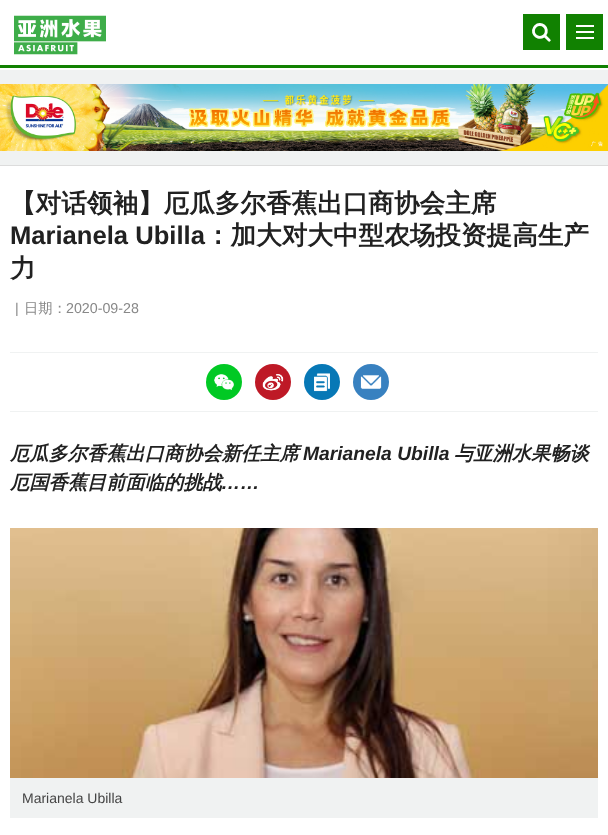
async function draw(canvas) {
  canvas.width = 608;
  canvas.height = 835;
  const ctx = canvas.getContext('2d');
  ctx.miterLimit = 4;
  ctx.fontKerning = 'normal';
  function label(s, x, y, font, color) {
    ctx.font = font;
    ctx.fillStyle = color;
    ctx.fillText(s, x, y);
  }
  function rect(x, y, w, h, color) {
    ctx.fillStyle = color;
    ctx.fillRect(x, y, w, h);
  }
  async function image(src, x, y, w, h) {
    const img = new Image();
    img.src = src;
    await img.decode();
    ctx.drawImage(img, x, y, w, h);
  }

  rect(0, 0, 608, 835, '#fff');
  rect(0, 65, 608, 3, '#118101');
  await image('assets/img1.png', 523, 14, 37, 36);
  rect(566, 14, 37, 36, '#118101');
  await image('assets/img2.png', 576, 25, 18, 14);
  await image('assets/img3.png', 14, 15, 92, 40);
  rect(0, 70, 608, 95, '#f0f2f2');
  rect(0, 165, 608, 1, '#dcdcdc');
  await image('assets/img4.png', 0, 84, 608, 67);
  label('【对话领袖】厄瓜多尔香蕉出口商协会主席', 10, 212, 'bold 25.6px WenQuanYi Zen Hei', '#212121');
  label('Marianela Ubilla', 10, 244, 'bold 25.6px Liberation Sans', '#212121');
  label('：加大对大中型农场投资提高生产', 205, 244, 'bold 25.6px WenQuanYi Zen Hei', '#212121');
  label('力', 10, 277, 'bold 25.6px WenQuanYi Zen Hei', '#212121');
  label('|', 15, 313, '14.25px Liberation Sans', '#888');
  label('日期：', 24, 313, '500 14.25px WenQuanYi Zen Hei', '#888');
  label('2020-09-28', 66, 313, '14.25px Liberation Sans', '#888');
  rect(10, 352, 588, 1, '#f0f2f2');
  rect(10, 411, 588, 1, '#f0f2f2');
  ctx.fillStyle = '#01c924';
  ctx.beginPath();
  ctx.arc(224, 382, 18, 0, 2 * Math.PI);
  ctx.fill();
  await image('assets/img5.png', 214, 374, 20, 16);
  ctx.fillStyle = '#be1926';
  ctx.beginPath();
  ctx.arc(273, 382, 18, 0, 2 * Math.PI);
  ctx.fill();
  await image('assets/img6.png', 262, 374, 22, 17);
  ctx.fillStyle = '#0778b6';
  ctx.beginPath();
  ctx.arc(322, 382, 18, 0, 2 * Math.PI);
  ctx.fill();
  await image('assets/img7.png', 314, 373, 16, 19);
  ctx.fillStyle = '#3881c0';
  ctx.beginPath();
  ctx.arc(371, 382, 18, 0, 2 * Math.PI);
  ctx.fill();
  await image('assets/img8.png', 360, 375, 22, 14);
  label('厄瓜多尔香蕉出口商协会新任主席', 10, 460, 'italic bold 19.25px WenQuanYi Zen Hei', '#212121');
  label('Marianela Ubilla', 303, 460, 'italic bold 19.25px Liberation Sans', '#212121');
  label('与亚洲水果畅谈', 454, 460, 'italic bold 19.25px WenQuanYi Zen Hei', '#212121');
  label('厄国香蕉目前面临的挑战', 10, 489, 'italic bold 19.25px WenQuanYi Zen Hei', '#212121');
  label('……', 221, 489, 'italic bold 19.25px Liberation Sans', '#212121');
  await image('assets/img9.png', 10, 528, 588, 250);
  rect(10, 778, 588, 40, '#f0f2f2');
  label('Marianela Ubilla', 22, 803, '14px Liberation Sans', '#444');
}

draw(document.querySelector('canvas'));
